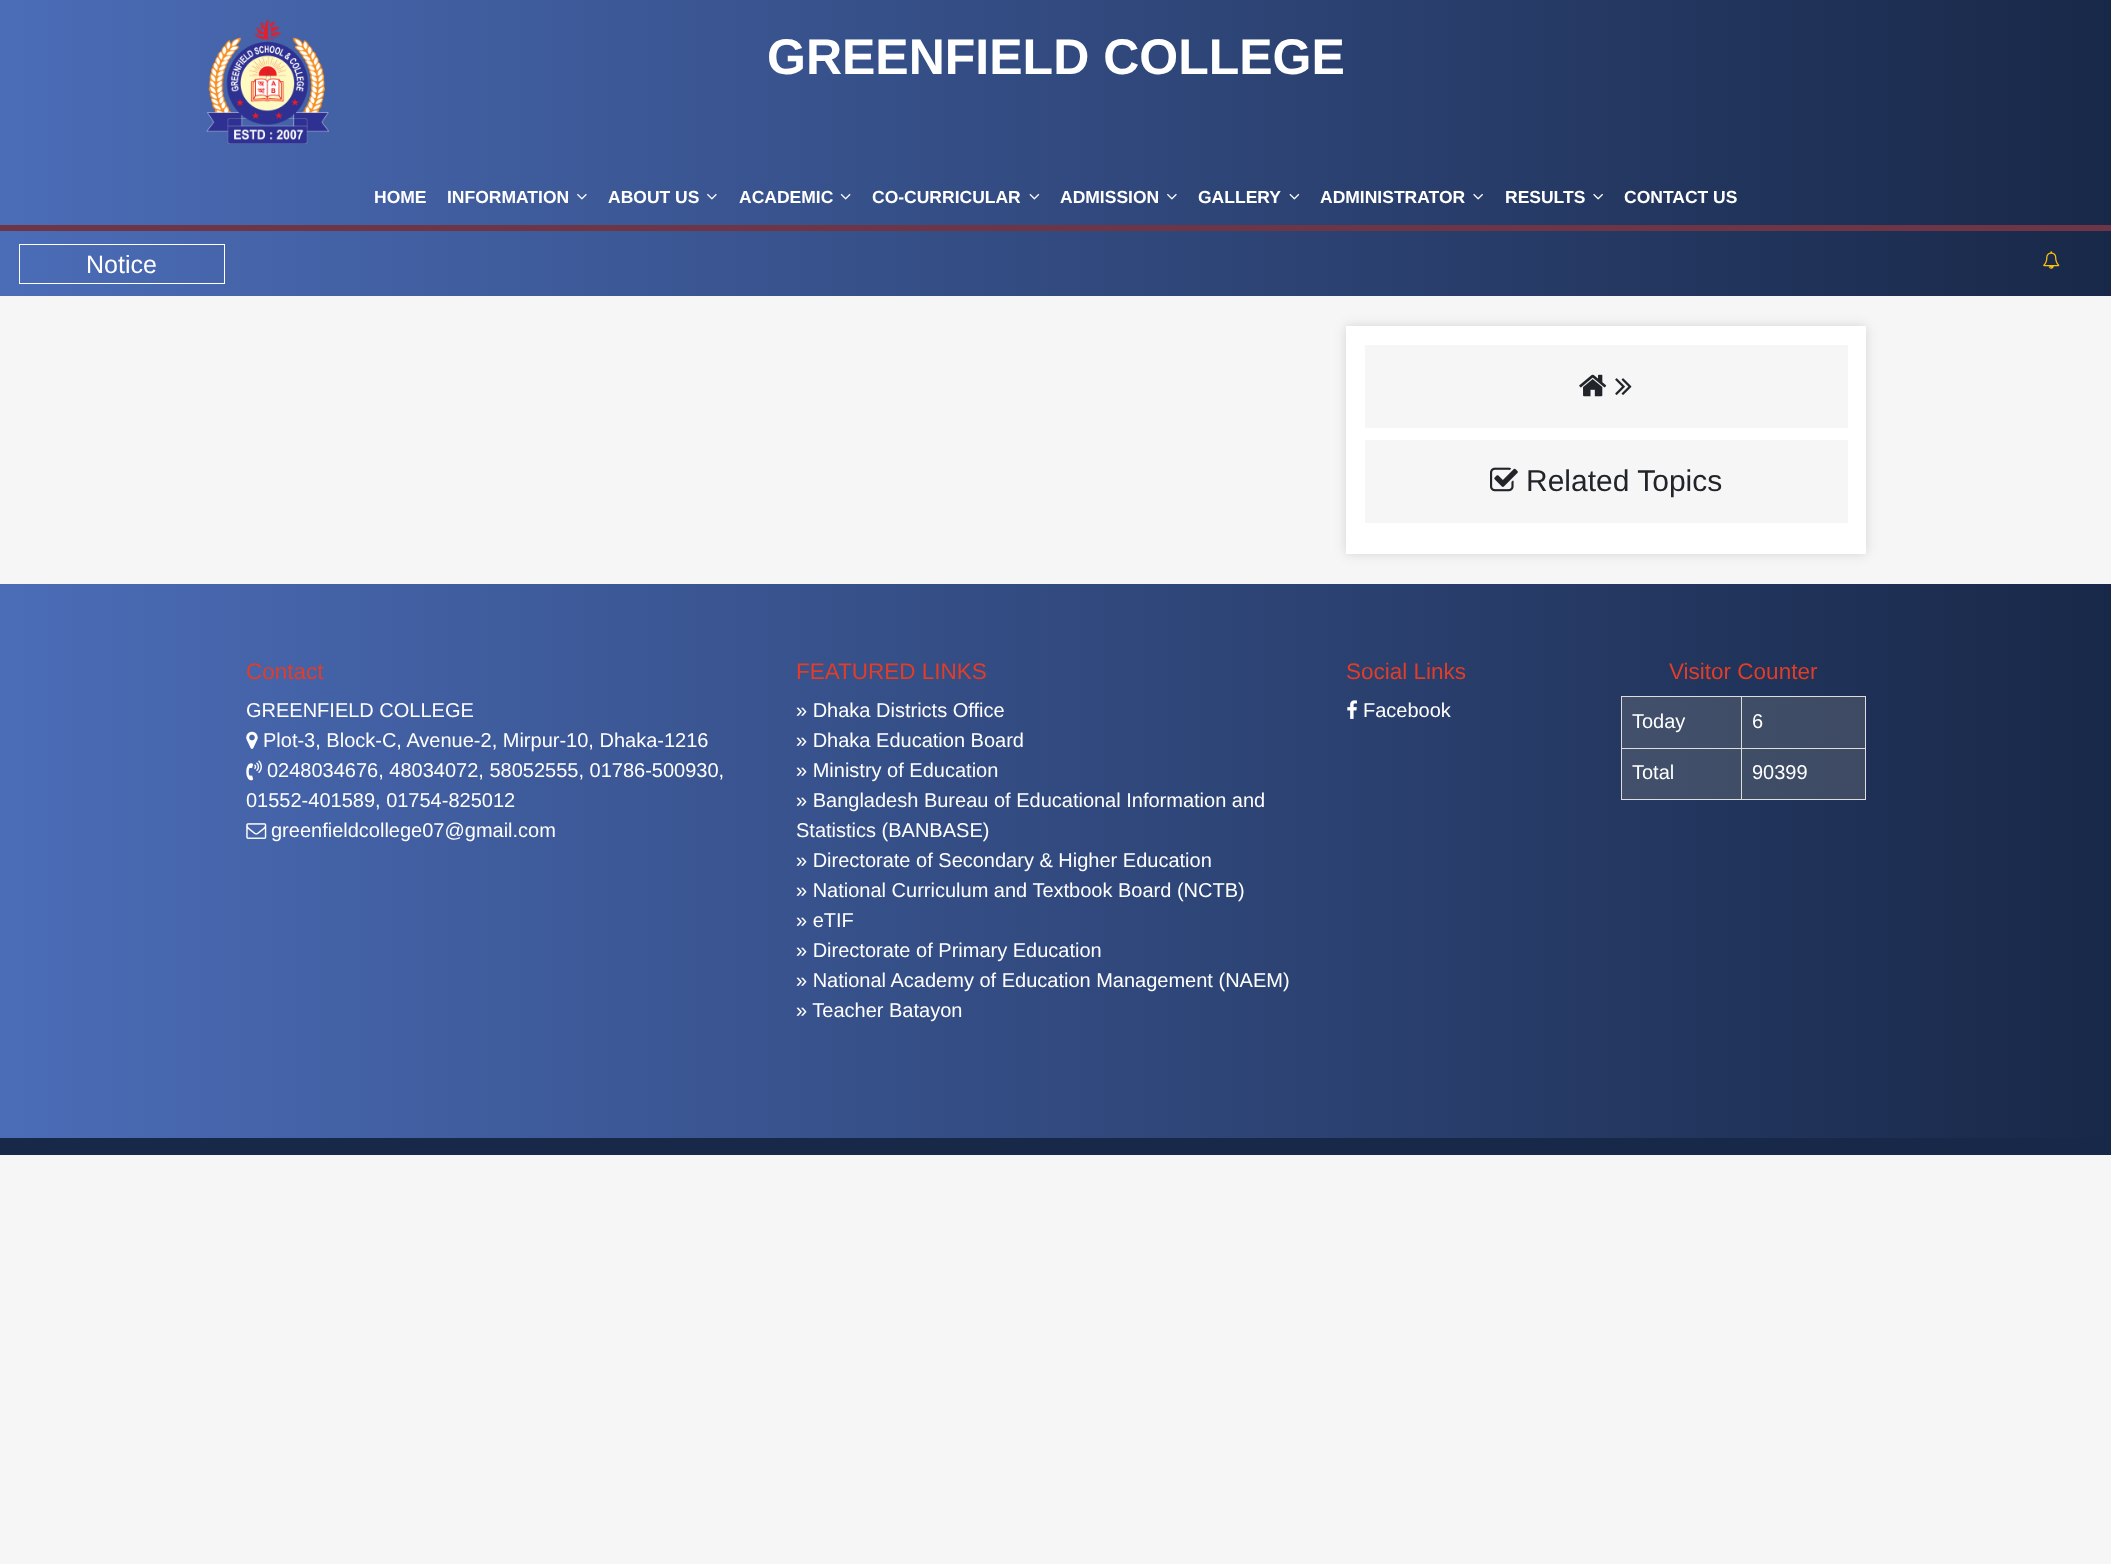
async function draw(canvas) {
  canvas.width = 2111;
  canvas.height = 1564;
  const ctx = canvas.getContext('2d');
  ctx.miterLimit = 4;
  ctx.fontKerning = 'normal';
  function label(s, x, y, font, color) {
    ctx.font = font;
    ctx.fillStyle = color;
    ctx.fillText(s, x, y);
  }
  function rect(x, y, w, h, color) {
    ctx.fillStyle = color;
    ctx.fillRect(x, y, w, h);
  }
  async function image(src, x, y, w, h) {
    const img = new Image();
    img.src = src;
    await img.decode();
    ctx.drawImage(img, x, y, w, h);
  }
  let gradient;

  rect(0, 0, 2111, 1564, '#f6f6f6');
  gradient = ctx.createLinearGradient(0, 148, 2111, 148);
  gradient.addColorStop(0, '#4b6cb7');
  gradient.addColorStop(1, '#182848');
  ctx.fillStyle = gradient;
  ctx.fillRect(0, 0, 2111, 296);
  await image('assets/img1.png', 206, 18, 124, 126);
  label('GREENFIELD COLLEGE', 767, 74, 'bold 50px Liberation Sans', '#fff');
  rect(0, 225, 2111, 6, '#6d3546');
  label('HOME', 374, 203, 'bold 17.5px Liberation Sans', '#fff');
  label('INFORMATION', 447, 203, 'bold 17.5px Liberation Sans', '#fff');
  await image('assets/img2.png', 577, 193, 10, 7);
  label('ABOUT US', 608, 203, 'bold 17.5px Liberation Sans', '#fff');
  await image('assets/img3.png', 707, 193, 10, 7);
  label('ACADEMIC', 739, 203, 'bold 17.5px Liberation Sans', '#fff');
  await image('assets/img4.png', 840, 193, 11, 7);
  label('CO-CURRICULAR', 872, 203, 'bold 17.5px Liberation Sans', '#fff');
  await image('assets/img5.png', 1029, 193, 11, 7);
  label('ADMISSION', 1060, 203, 'bold 17.5px Liberation Sans', '#fff');
  await image('assets/img6.png', 1167, 193, 10, 7);
  label('GALLERY', 1198, 203, 'bold 17.5px Liberation Sans', '#fff');
  await image('assets/img7.png', 1289, 193, 11, 7);
  label('ADMINISTRATOR', 1320, 203, 'bold 17.5px Liberation Sans', '#fff');
  await image('assets/img8.png', 1473, 193, 10, 7);
  label('RESULTS', 1505, 203, 'bold 17.5px Liberation Sans', '#fff');
  await image('assets/img9.png', 1593, 193, 10, 7);
  label('CONTACT US', 1624, 203, 'bold 17.5px Liberation Sans', '#fff');
  ctx.strokeStyle = '#fff';
  ctx.strokeRect(19.5, 244.5, 205, 39);
  label('Notice', 86, 273, '25px Liberation Sans', '#fff');
  await image('assets/img10.png', 2043, 251, 17, 18);
  ctx.fillStyle = '#3232322b';
  ctx.filter = 'blur(6px)';
  ctx.beginPath();
  ctx.rect(1346, 326, 520, 228);
  ctx.fill();
  ctx.filter = 'none';
  rect(1346, 326, 520, 228, '#fff');
  rect(1365, 345, 483, 83, '#f6f6f6');
  await image('assets/img11.png', 1579, 374, 28, 23);
  await image('assets/img12.png', 1615, 378, 17, 17);
  rect(1365, 440, 483, 83, '#f6f6f6');
  await image('assets/img13.png', 1490, 467, 28, 25);
  label('Related Topics', 1526, 491, '30px Liberation Sans', '#212529');
  gradient = ctx.createLinearGradient(0, 861, 2111, 861);
  gradient.addColorStop(0, '#4b6cb7');
  gradient.addColorStop(1, '#182848');
  ctx.fillStyle = gradient;
  ctx.fillRect(0, 584, 2111, 554);
  gradient = ctx.createLinearGradient(0, 861, 2111, 861);
  gradient.addColorStop(0, '#5c73a5');
  gradient.addColorStop(1, '#3a455a');
  ctx.fillStyle = gradient;
  ctx.fillRect(1622, 697, 243, 102);
  label('Contact', 246, 679, '22.5px Liberation Sans', '#e23d28');
  label('GREENFIELD COLLEGE', 246, 717, '20px Liberation Sans', '#fff');
  await image('assets/img14.png', 246, 731, 12, 18);
  label('Plot-3, Block-C, Avenue-2, Mirpur-10, Dhaka-1216', 263, 747, '20px Liberation Sans', '#fff');
  await image('assets/img15.png', 246, 760, 16, 21);
  label('0248034676, 48034072, 58052555, 01786-500930,', 267, 777, '20px Liberation Sans', '#fff');
  label('01552-401589, 01754-825012', 246, 807, '20px Liberation Sans', '#fff');
  await image('assets/img16.png', 246, 823, 21, 16);
  label('greenfieldcollege07@gmail.com', 271, 837, '20px Liberation Sans', '#fff');
  label('FEATURED LINKS', 796, 679, '22.5px Liberation Sans', '#e23d28');
  label('» Dhaka Districts Office', 796, 717, '20px Liberation Sans', '#fff');
  label('» Dhaka Education Board', 796, 747, '20px Liberation Sans', '#fff');
  label('» Ministry of Education', 796, 777, '20px Liberation Sans', '#fff');
  label('» Bangladesh Bureau of Educational Information and', 796, 807, '20px Liberation Sans', '#fff');
  label('Statistics (BANBASE)', 796, 837, '20px Liberation Sans', '#fff');
  label('» Directorate of Secondary & Higher Education', 796, 867, '20px Liberation Sans', '#fff');
  label('» National Curriculum and Textbook Board (NCTB)', 796, 897, '20px Liberation Sans', '#fff');
  label('» eTIF', 796, 927, '20px Liberation Sans', '#fff');
  label('» Directorate of Primary Education', 796, 957, '20px Liberation Sans', '#fff');
  label('» National Academy of Education Management (NAEM)', 796, 987, '20px Liberation Sans', '#fff');
  label('» Teacher Batayon', 796, 1017, '20px Liberation Sans', '#fff');
  label('Social Links', 1346, 679, '22.5px Liberation Sans', '#e23d28');
  await image('assets/img17.png', 1347, 700, 10, 19);
  label('Facebook', 1363, 717, '20px Liberation Sans', '#fff');
  label('Visitor Counter', 1669, 679, '22.5px Liberation Sans', '#e23d28');
  rect(1741, 696, 125, 1, '#ddd');
  rect(1741, 748, 125, 1, '#ddd');
  rect(1865, 748, 1, 52, '#ddd');
  rect(1741, 799, 125, 1, '#ddd');
  rect(1741, 748, 1, 52, '#ddd');
  rect(1621, 748, 122, 1, '#ddd');
  rect(1741, 696, 1, 53, '#ddd');
  rect(1621, 696, 122, 1, '#ddd');
  rect(1621, 799, 122, 1, '#ddd');
  rect(1621, 748, 1, 52, '#ddd');
  rect(1621, 696, 1, 53, '#ddd');
  label('Today', 1632, 728, '20px Liberation Sans', '#fff');
  rect(1865, 696, 1, 53, '#ddd');
  label('6', 1752, 728, '20px Liberation Sans', '#fff');
  label('Total', 1632, 779, '20px Liberation Sans', '#fff');
  label('90399', 1752, 779, '20px Liberation Sans', '#fff');
  rect(0, 1138, 2111, 17, '#182848');
}

draw(document.querySelector('canvas'));
